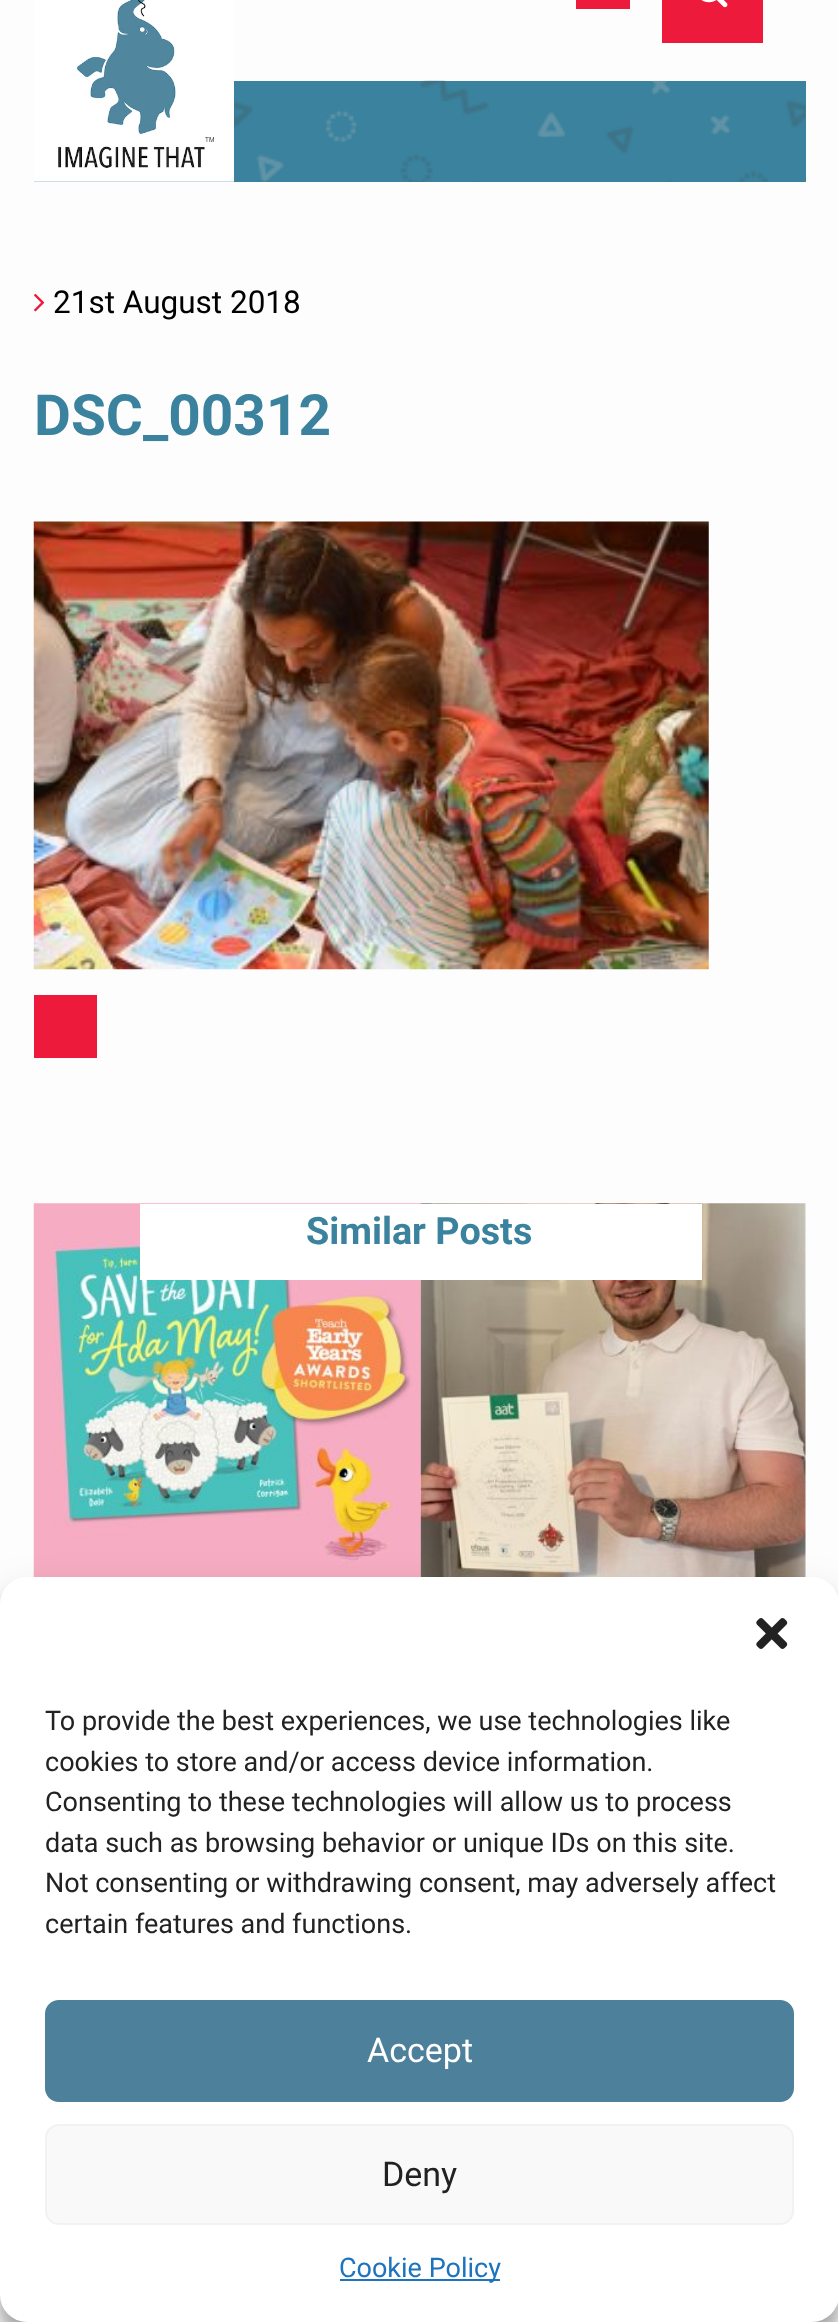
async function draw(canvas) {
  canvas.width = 838;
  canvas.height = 2322;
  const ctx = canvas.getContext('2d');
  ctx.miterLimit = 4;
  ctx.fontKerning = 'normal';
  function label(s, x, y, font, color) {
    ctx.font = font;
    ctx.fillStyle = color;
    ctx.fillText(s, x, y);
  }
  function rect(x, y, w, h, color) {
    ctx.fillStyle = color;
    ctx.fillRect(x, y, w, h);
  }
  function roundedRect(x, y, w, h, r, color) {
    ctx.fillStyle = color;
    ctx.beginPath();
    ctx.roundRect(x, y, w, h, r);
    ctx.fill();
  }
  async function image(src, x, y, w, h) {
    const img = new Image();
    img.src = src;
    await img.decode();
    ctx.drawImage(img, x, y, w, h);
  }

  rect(0, 0, 838, 2322, '#fdfdfd');
  rect(34, 81, 772, 101, '#3a829d');
  await image('assets/img3.png', 107, 80, 699, 102);
  await image('assets/img1.png', 34, 0, 200, 182);
  rect(576, 0, 54, 9, '#ee1a3b');
  rect(662, 0, 101, 43, '#ee1a3b');
  await image('assets/img2.png', 701, 0, 27, 8);
  await image('assets/img4.png', 34, 293, 11, 19);
  label('21st August 2018', 53, 313, '31.5px Roboto', '#000');
  label('DSC_00312', 34, 435, 'bold 56.75px Roboto', '#3a829d');
  await image('assets/img5.png', 33, 521, 676, 449);
  rect(34, 995, 63, 63, '#ee1a3b');
  await image('assets/img6.png', 33, 1203, 388, 374);
  await image('assets/img7.png', 420, 1203, 386, 374);
  rect(140, 1204, 562, 76, '#fff');
  label('Similar Posts', 306, 1244, 'bold 37.75px Roboto', '#3a829d');
  ctx.fillStyle = '#0000003b';
  ctx.filter = 'blur(7px)';
  ctx.beginPath();
  ctx.roundRect(0, 1591, 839, 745, 27);
  ctx.fill();
  ctx.filter = 'none';
  ctx.fillStyle = '#00000030';
  ctx.filter = 'blur(22.5px)';
  ctx.beginPath();
  ctx.roundRect(0, 1600, 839, 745, 27);
  ctx.fill();
  ctx.filter = 'none';
  roundedRect(0, 1577, 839, 745, 27, '#fff');
  await image('assets/img8.png', 756, 1618, 32, 31);
  label('To provide the best experiences, we use technologies like', 45, 1730, '27px Roboto', '#222');
  label('cookies to store and/or access device information.', 45, 1771, '27px Roboto', '#222');
  label('Consenting to these technologies will allow us to process', 45, 1811, '27px Roboto', '#222');
  label('data such as browsing behavior or unique IDs on this site.', 45, 1852, '27px Roboto', '#222');
  label('Not consenting or withdrawing consent, may adversely affect', 45, 1892, '27px Roboto', '#222');
  label('certain features and functions.', 45, 1933, '27px Roboto', '#222');
  ctx.fillStyle = '#4d809a';
  ctx.beginPath();
  ctx.roundRect(46, 2001, 747, 100, 13);
  ctx.fill();
  ctx.strokeStyle = '#4d809a';
  ctx.lineWidth = 2;
  ctx.stroke();
  label('Accept', 367, 2062, '34px Roboto', '#fff');
  ctx.fillStyle = '#f9f9f9';
  ctx.beginPath();
  ctx.roundRect(46, 2125, 747, 99, 13);
  ctx.fill();
  ctx.strokeStyle = '#f2f2f2';
  ctx.stroke();
  label('Deny', 382, 2186, '34px Roboto', '#222');
  rect(340, 2279, 160, 2, '#1e73be');
  label('Cookie Policy', 339, 2277, '27px Roboto', '#1e73be');
}

draw(document.querySelector('canvas'));
